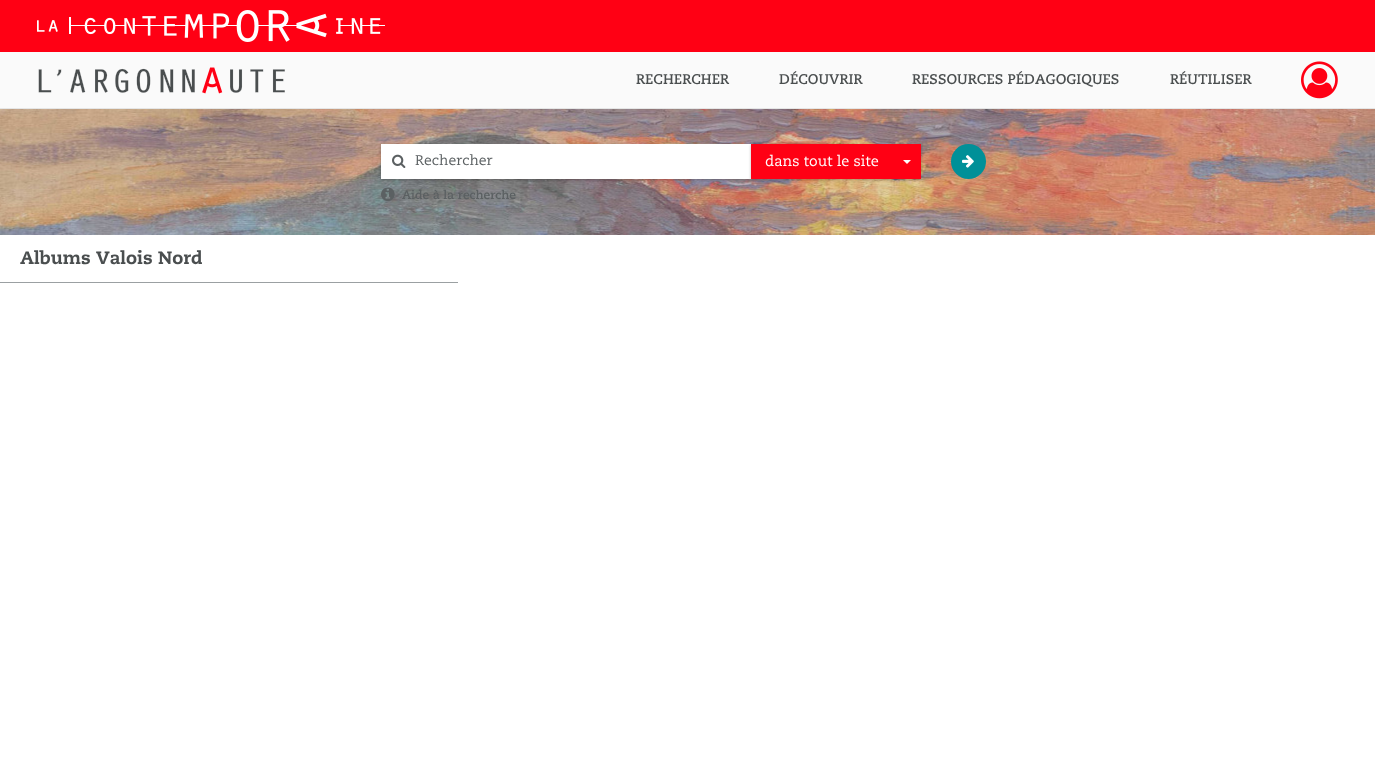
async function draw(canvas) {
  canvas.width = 1375;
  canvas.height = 782;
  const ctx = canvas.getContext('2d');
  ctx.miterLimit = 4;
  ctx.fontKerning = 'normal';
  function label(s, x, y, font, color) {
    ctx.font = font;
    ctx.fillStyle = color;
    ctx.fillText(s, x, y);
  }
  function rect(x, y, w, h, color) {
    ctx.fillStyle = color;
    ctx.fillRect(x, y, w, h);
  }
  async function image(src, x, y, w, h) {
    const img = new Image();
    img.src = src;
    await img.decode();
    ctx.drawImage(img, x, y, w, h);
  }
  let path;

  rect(0, 0, 1375, 782, '#fff');
  rect(0, 0, 1375, 52, '#ff0014');
  await image('assets/img1.png', 37, 10, 348, 32);
  rect(0, 52, 1375, 56, '#fafafa');
  rect(0, 108, 1375, 1, '#e5e6e6');
  await image('assets/img2.png', 38, 67, 247, 27);
  label('RECHERCHER', 636, 84, 'bold 14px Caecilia', '#4a4e4f');
  label('DÉCOUVRIR', 779, 84, 'bold 14px Caecilia', '#4a4e4f');
  label('RESSOURCES PÉDAGOGIQUES', 912, 84, 'bold 14px Caecilia', '#4a4e4f');
  label('RÉUTILISER', 1170, 84, 'bold 14px Caecilia', '#4a4e4f');
  await image('assets/img3.png', 1301, 61, 37, 38);
  await image('assets/img4.png', 0, 109, 1375, 126);
  ctx.fillStyle = '#00000040';
  ctx.filter = 'blur(1.5px)';
  ctx.beginPath();
  ctx.rect(381, 145, 370, 35);
  ctx.fill();
  ctx.filter = 'none';
  rect(381, 144, 370, 35, '#fff');
  await image('assets/img5.png', 392, 154, 14, 14);
  label('Rechercher', 415, 165, '14px Caecilia', '#5b6062');
  ctx.fillStyle = '#00000040';
  ctx.filter = 'blur(1.5px)';
  ctx.beginPath();
  ctx.rect(751, 145, 170, 35);
  ctx.fill();
  ctx.filter = 'none';
  rect(751, 144, 170, 35, '#ff0014');
  label('dans tout le site', 765, 166, '14.5px Caecilia', '#fff');
  path = new Path2D('M903 160H911L907 164Z');
  ctx.fill(path);
  ctx.fillStyle = '#009098';
  ctx.beginPath();
  ctx.arc(968.5, 161.5, 17.5, 0, 2 * Math.PI);
  ctx.fill();
  await image('assets/img6.png', 962, 155, 12, 13);
  await image('assets/img7.png', 381, 187, 14, 14);
  label('Aide à la recherche', 402, 199, 'bold 12px Caecilia', '#5b6062');
  rect(0, 282, 458, 1, '#9ba0a2');
  label('Albums Valois Nord', 20, 264, '800 18px Caecilia', '#4a4e4f');
}

draw(document.querySelector('canvas'));
